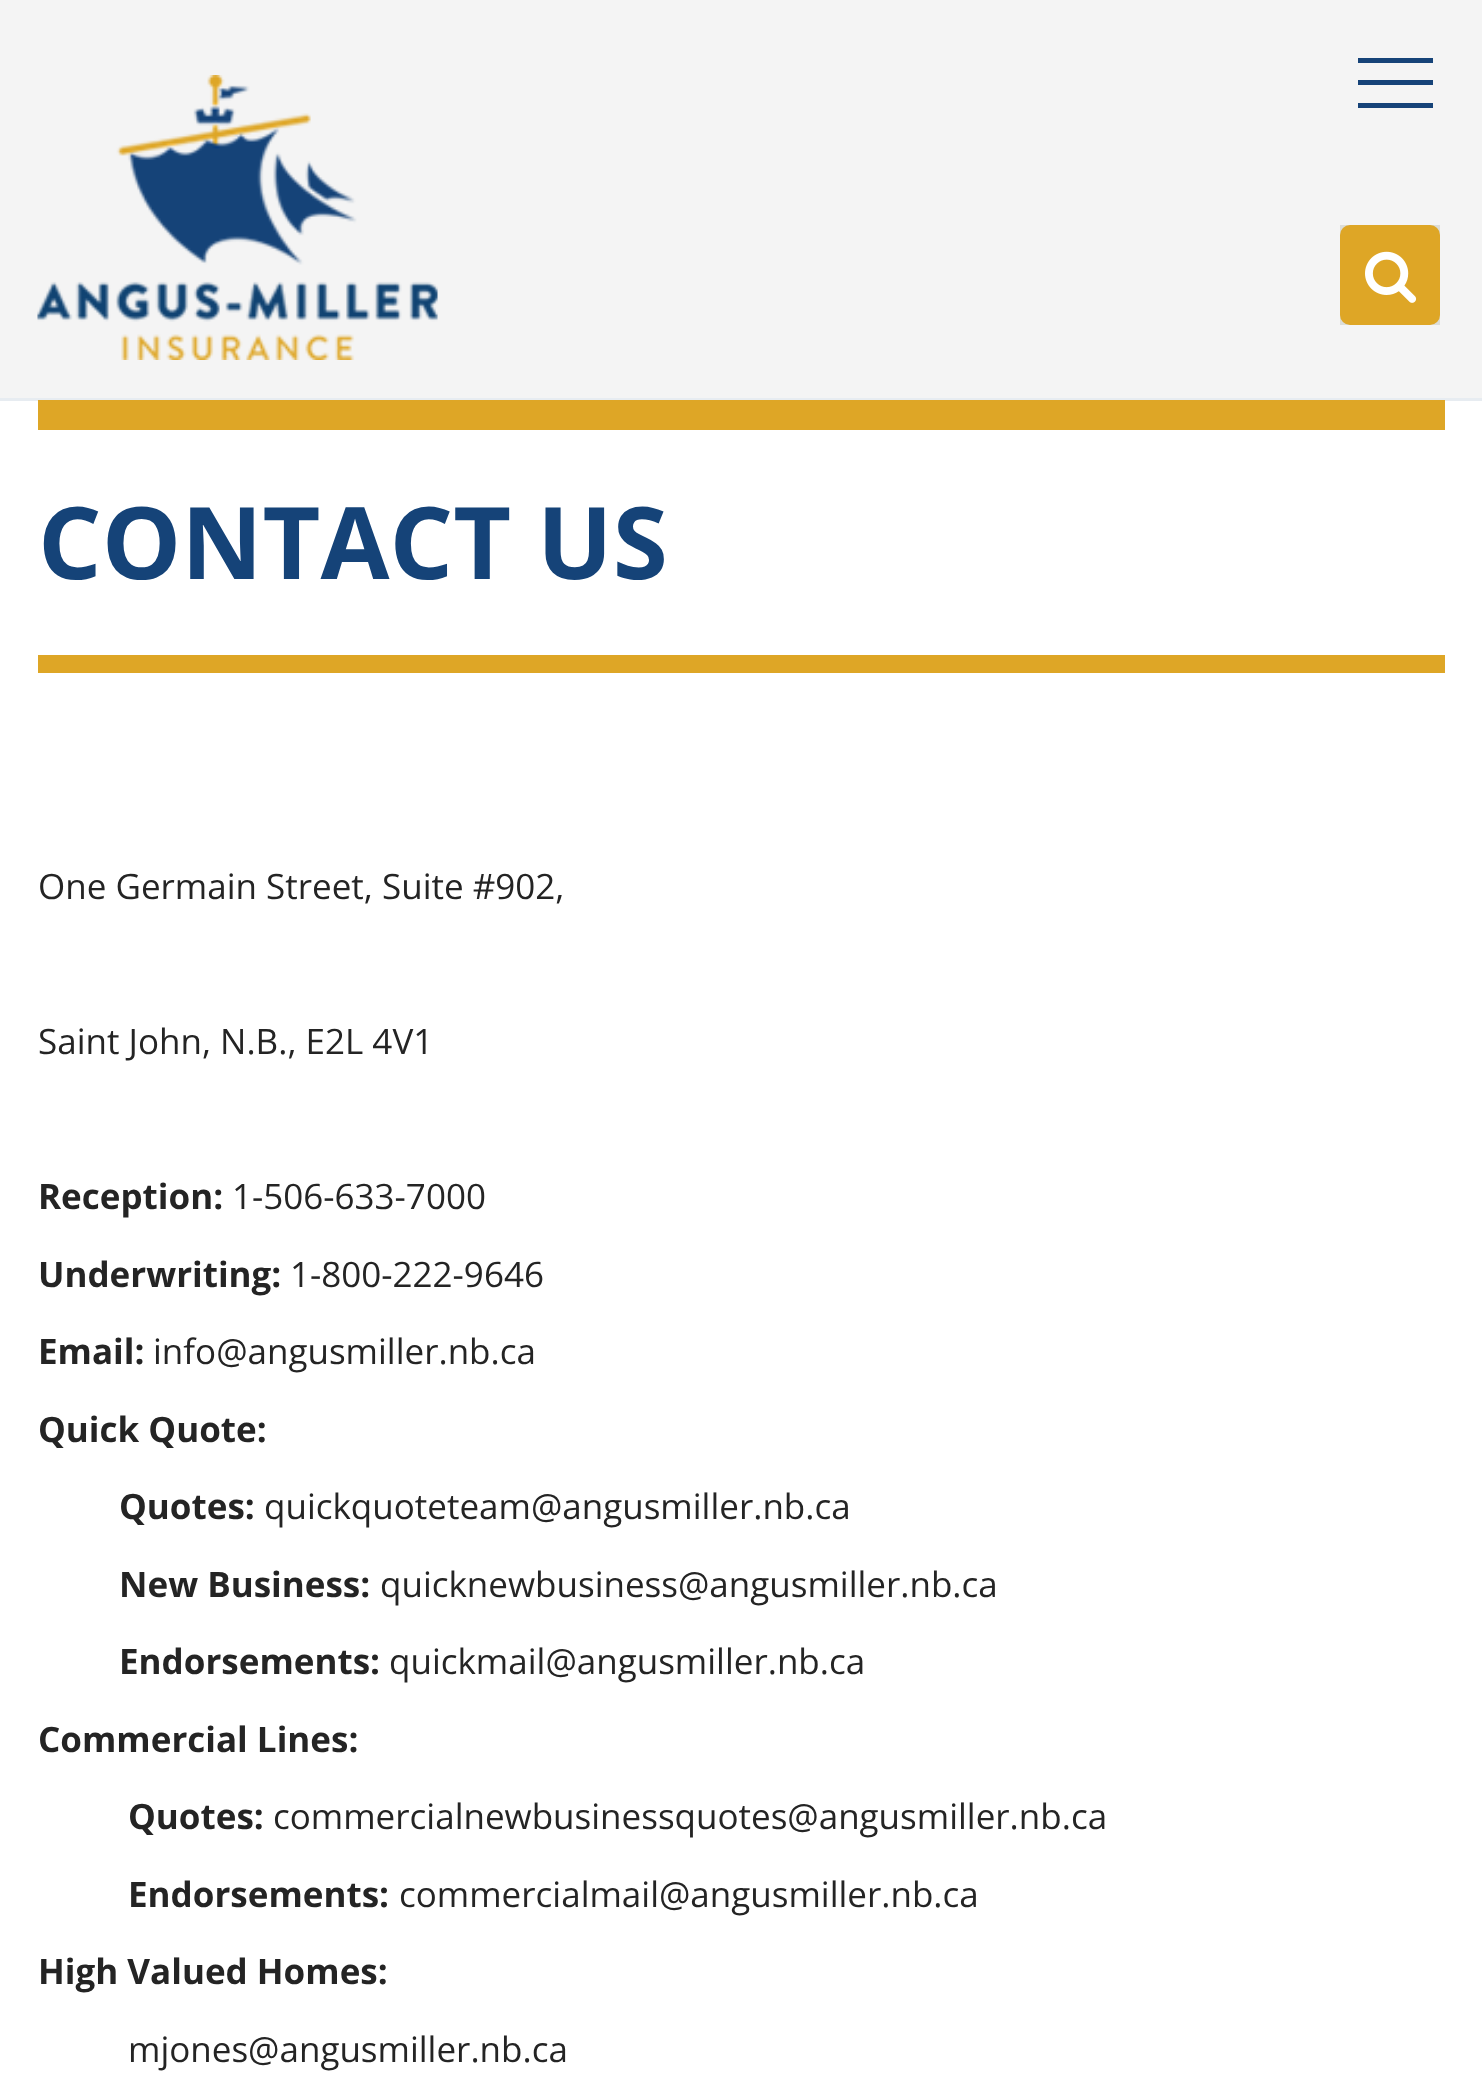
async function draw(canvas) {
  canvas.width = 1482;
  canvas.height = 2100;
  const ctx = canvas.getContext('2d');
  ctx.miterLimit = 4;
  ctx.fontKerning = 'normal';
  function label(s, x, y, font, color) {
    ctx.font = font;
    ctx.fillStyle = color;
    ctx.fillText(s, x, y);
  }
  function rect(x, y, w, h, color) {
    ctx.fillStyle = color;
    ctx.fillRect(x, y, w, h);
  }
  function roundedRect(x, y, w, h, r, color) {
    ctx.fillStyle = color;
    ctx.beginPath();
    ctx.roundRect(x, y, w, h, r);
    ctx.fill();
  }
  async function image(src, x, y, w, h) {
    const img = new Image();
    img.src = src;
    await img.decode();
    ctx.drawImage(img, x, y, w, h);
  }

  rect(0, 0, 1482, 2100, '#fff');
  rect(0, 0, 1482, 398, '#f4f4f4');
  await image('assets/img1.png', 37, 75, 401, 285);
  rect(1340, 225, 100, 100, '#dcddd8');
  roundedRect(1340, 225, 100, 100, 10, '#dea626');
  await image('assets/img2.png', 1365, 251, 52, 52);
  rect(1358, 58, 75, 5, '#164378');
  rect(1358, 80, 75, 5, '#164378');
  rect(1358, 103, 75, 5, '#164378');
  rect(0, 398, 1482, 3, '#e7ecf1');
  rect(38, 400, 1407, 30, '#dea626');
  label('CONTACT US', 38, 579, 'bold 100px Open Sans', '#154378');
  rect(38, 655, 1407, 18, '#dea626');
  label('One Germain Street, Suite #902,', 38, 899, '35px Open Sans', '#242424');
  label('Saint John, N.B., E2L 4V1', 38, 1054, '35px Open Sans', '#242424');
  label('Reception:', 38, 1209, 'bold 35px Open Sans', '#242424');
  label('1-506-633-7000', 232, 1209, '35px Open Sans', '#242424');
  label('Underwriting:', 38, 1287, 'bold 35px Open Sans', '#242424');
  label('1-800-222-9646', 290, 1287, '35px Open Sans', '#242424');
  label('Email:', 38, 1364, 'bold 35px Open Sans', '#242424');
  label('info@angusmiller.nb.ca', 153, 1364, '35px Open Sans', '#242424');
  label('Quick Quote:', 38, 1442, 'bold 35px Open Sans', '#242424');
  label('Quotes:', 119, 1519, 'bold 35px Open Sans', '#242424');
  label('quickquoteteam@angusmiller.nb.ca', 264, 1519, '35px Open Sans', '#242424');
  label('New Business:', 119, 1597, 'bold 35px Open Sans', '#242424');
  label('quicknewbusiness@angusmiller.nb.ca', 380, 1597, '35px Open Sans', '#242424');
  label('Endorsements:', 119, 1674, 'bold 35px Open Sans', '#242424');
  label('quickmail@angusmiller.nb.ca', 389, 1674, '35px Open Sans', '#242424');
  label('Commercial Lines:', 38, 1752, 'bold 35px Open Sans', '#242424');
  label('Quotes:', 128, 1829, 'bold 35px Open Sans', '#242424');
  label('commercialnewbusinessquotes@angusmiller.nb.ca', 273, 1829, '35px Open Sans', '#242424');
  label('Endorsements:', 128, 1907, 'bold 35px Open Sans', '#242424');
  label('commercialmail@angusmiller.nb.ca', 399, 1907, '35px Open Sans', '#242424');
  label('High Valued Homes:', 38, 1984, 'bold 35px Open Sans', '#242424');
  label('mjones@angusmiller.nb.ca', 128, 2062, '35px Open Sans', '#242424');
}

draw(document.querySelector('canvas'));
